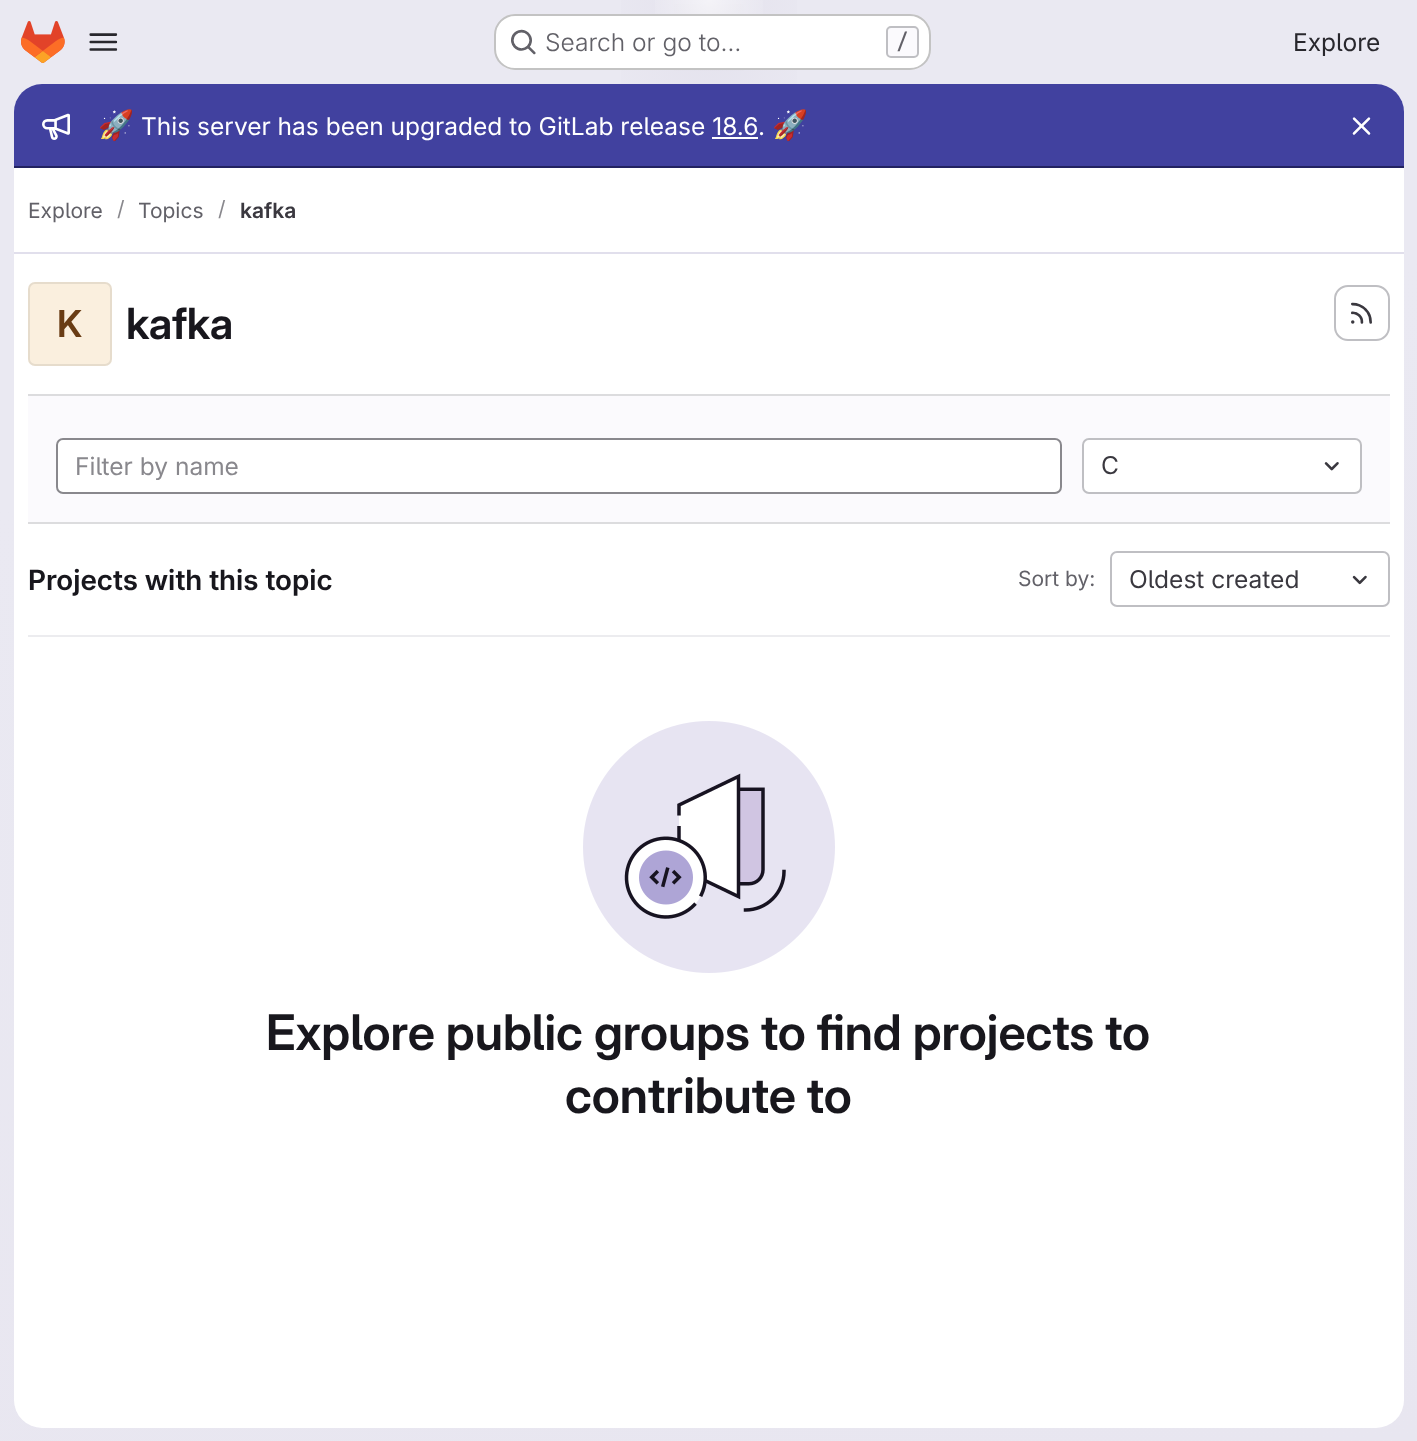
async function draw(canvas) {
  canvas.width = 1417;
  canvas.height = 1441;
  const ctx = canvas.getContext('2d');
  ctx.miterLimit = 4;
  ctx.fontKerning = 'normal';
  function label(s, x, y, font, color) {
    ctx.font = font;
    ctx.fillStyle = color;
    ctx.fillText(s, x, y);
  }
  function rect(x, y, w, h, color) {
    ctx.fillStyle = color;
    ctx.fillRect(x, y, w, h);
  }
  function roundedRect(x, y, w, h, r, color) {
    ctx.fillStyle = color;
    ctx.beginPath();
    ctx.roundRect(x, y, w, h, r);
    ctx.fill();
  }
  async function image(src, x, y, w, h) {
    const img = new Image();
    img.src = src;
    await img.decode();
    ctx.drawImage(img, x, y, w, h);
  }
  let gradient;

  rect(0, 0, 1417, 1441, '#fff');
  gradient = ctx.createLinearGradient(853, 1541, 564, -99);
  gradient.addColorStop(0, '#e8e6f0');
  gradient.addColorStop(0.7, '#eae9f2');
  ctx.fillStyle = gradient;
  ctx.fillRect(0, 0, 1417, 1441);
  gradient = ctx.createRadialGradient(709, 0, 0, 709, 0, 709);
  gradient.addColorStop(0, '#e4e2ed');
  gradient.addColorStop(0.17, '#e4e2ed00');
  ctx.fillStyle = gradient;
  ctx.beginPath();
  ctx.rect(621, 0, 176, 84);
  ctx.save();
  ctx.clip();
  ctx.scale(1, 1442 / 709);
  ctx.fillRect(0, 0, 1417, 709);
  ctx.restore();
  gradient = ctx.createRadialGradient(709, 0, 0, 709, 0, 709);
  gradient.addColorStop(0, '#e4e2ec');
  gradient.addColorStop(0.12, '#e4e2ec00');
  ctx.fillStyle = gradient;
  ctx.beginPath();
  ctx.rect(674, 4, 70, 67);
  ctx.save();
  ctx.clip();
  ctx.scale(1, 1442 / 709);
  ctx.fillRect(0, 0, 1417, 709);
  ctx.restore();
  gradient = ctx.createRadialGradient(709, 0, 0, 709, 0, 1607);
  gradient.addColorStop(0, '#ffffff99');
  gradient.addColorStop(0.04, '#ffffff00');
  ctx.fillStyle = gradient;
  ctx.fillRect(655, 0, 108, 14);
  await image('assets/img1.png', 21, 21, 44, 42);
  await image('assets/img2.png', 89, 33, 29, 18);
  roundedRect(494, 14, 437, 56, 21, '#fff');
  ctx.beginPath();
  ctx.roundRect(495, 15, 435, 54, 20);
  ctx.strokeStyle = '#0505063d';
  ctx.lineWidth = 2;
  ctx.stroke();
  await image('assets/img3.png', 511, 29, 25, 26);
  label('Search or go to…', 545, 51, '300 24.5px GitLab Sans', '#626168');
  ctx.fillStyle = '#fbfafd';
  ctx.beginPath();
  ctx.roundRect(887, 27, 31, 30, 4);
  ctx.fill();
  ctx.strokeStyle = '#bfbfc3';
  ctx.stroke();
  label('/', 896, 49, '500 21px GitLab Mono', '#626168');
  label('Explore', 1293, 51, '24.5px GitLab Sans', '#28272d');
  roundedRect(14, 84, 1390, 1344, 28, '#fff');
  ctx.fillStyle = '#41419f';
  ctx.beginPath();
  ctx.roundRect(14, 84, 1390, 84, [28, 28, 0, 0]);
  ctx.fill();
  rect(14, 166, 1390, 2, '#222261');
  await image('assets/img4.png', 42, 113, 28, 27);
  label('🚀', 98, 135, '29px Noto Color Emoji', '#fff');
  label('This server has been upgraded to GitLab release 18.6', 141, 135, '24.5px GitLab Sans', '#fff');
  label('.', 758, 135, '24.5px GitLab Sans', '#fff');
  label('🚀', 772, 135, '29px Noto Color Emoji', '#fff');
  rect(712, 137, 46, 2, '#fff');
  await image('assets/img5.png', 1352, 117, 19, 18);
  rect(14, 252, 1390, 2, '#e1dfec');
  label('Explore', 28, 218, '21px GitLab Sans', '#626168');
  label('/', 117, 216, '21px GitLab Sans', '#89888d');
  label('Topics', 138, 218, '21px GitLab Sans', '#626168');
  label('/', 218, 216, '21px GitLab Sans', '#89888d');
  label('kafka', 240, 218, '600 21px "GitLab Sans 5"', '#3a383f');
  roundedRect(28, 282, 84, 84, 7, '#faefde');
  ctx.beginPath();
  ctx.roundRect(29, 283, 82, 82, 6);
  ctx.strokeStyle = '#05050614';
  ctx.stroke();
  ctx.letterSpacing = '-0.5px';
  label('K', 57, 337, '600 37px "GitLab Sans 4"', '#693c14');
  label('kafka', 126, 339, '600 43px GitLab Sans', '#18171d');
  ctx.beginPath();
  ctx.roundRect(1335, 286, 54, 54, 13);
  ctx.strokeStyle = '#bfbfc3';
  ctx.stroke();
  await image('assets/img6.png', 1351, 302, 21, 22);
  rect(28, 396, 1362, 126, '#fbfafd');
  rect(28, 394, 1362, 2, '#dcdcde');
  rect(28, 522, 1362, 2, '#dcdcde');
  ctx.fillStyle = '#fff';
  ctx.beginPath();
  ctx.roundRect(57, 439, 1004, 54, 6);
  ctx.fill();
  ctx.strokeStyle = '#89888d';
  ctx.stroke();
  ctx.letterSpacing = '0px';
  label('Filter by name', 75, 475, '24.5px GitLab Sans', '#89888d');
  ctx.fillStyle = '#fff';
  ctx.beginPath();
  ctx.roundRect(1083, 439, 278, 54, 6);
  ctx.fill();
  ctx.strokeStyle = '#bfbfc3';
  ctx.stroke();
  label('C', 1101, 474, '24.5px GitLab Sans', '#3a383f');
  await image('assets/img7.png', 1324, 462, 15, 9);
  rect(28, 635, 1362, 2, '#ececef');
  label('Projects with this topic', 28, 590, '600 28px "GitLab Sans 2"', '#18171d');
  label('Sort by:', 1018, 586, '21px GitLab Sans', '#626168');
  ctx.beginPath();
  ctx.roundRect(1111, 552, 278, 54, 6);
  ctx.stroke();
  label('Oldest created', 1129, 588, '24.5px GitLab Sans', '#3a383f');
  await image('assets/img8.png', 1352, 575, 15, 10);
  await image('assets/img9.png', 583, 721, 252, 252);
  label('Explore public groups to find projects to', 266, 1050, '600 49px "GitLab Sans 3"', '#18171d');
  label('contribute to', 565, 1113, '600 49px "GitLab Sans 3"', '#18171d');
}

draw(document.querySelector('canvas'));
